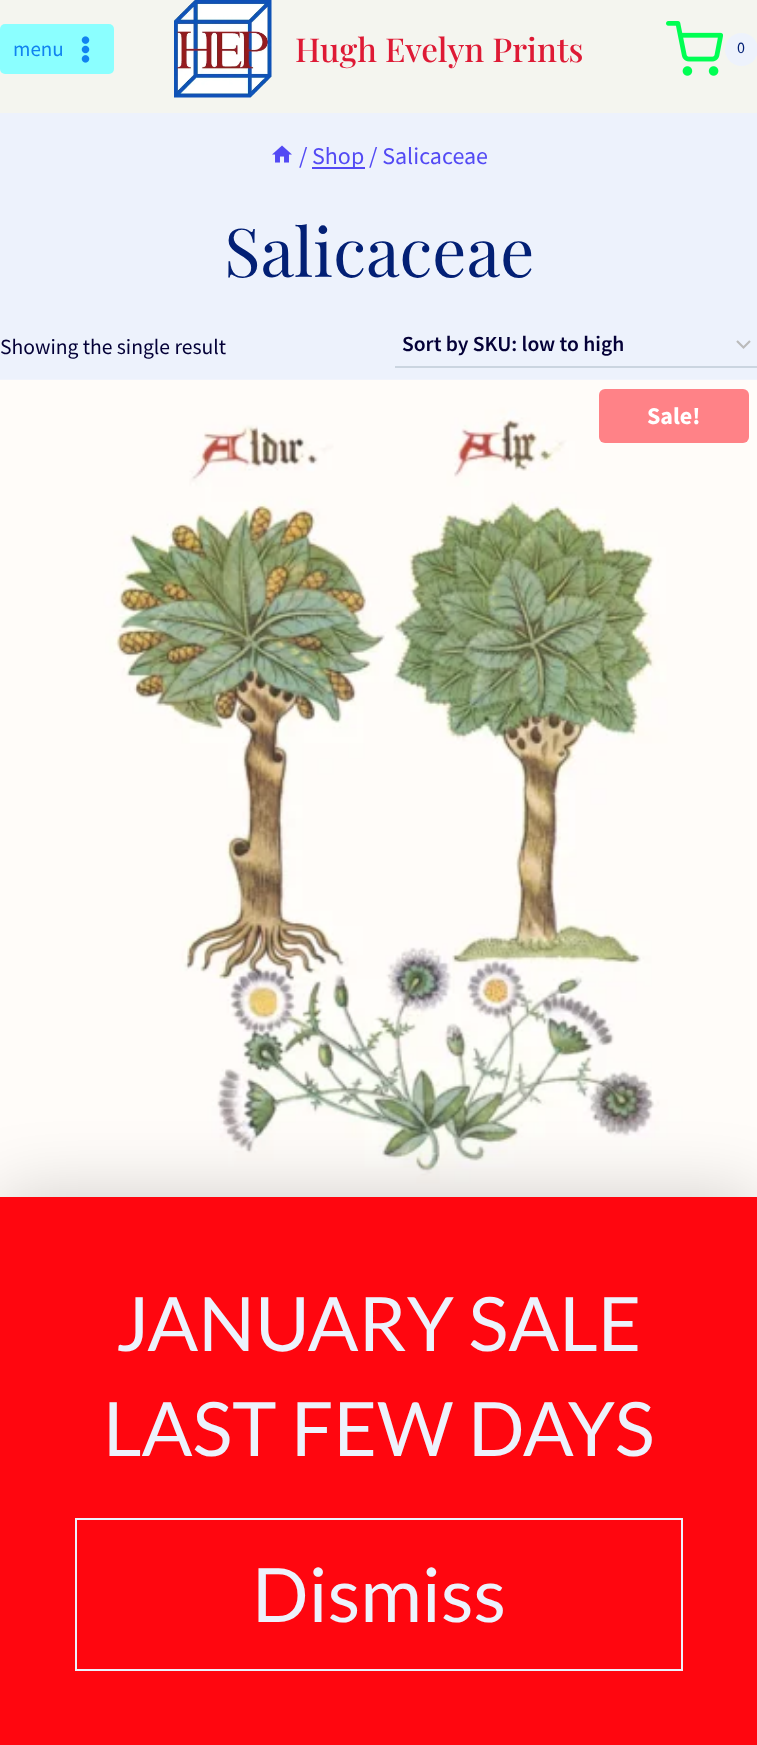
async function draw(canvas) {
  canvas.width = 757;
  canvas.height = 1745;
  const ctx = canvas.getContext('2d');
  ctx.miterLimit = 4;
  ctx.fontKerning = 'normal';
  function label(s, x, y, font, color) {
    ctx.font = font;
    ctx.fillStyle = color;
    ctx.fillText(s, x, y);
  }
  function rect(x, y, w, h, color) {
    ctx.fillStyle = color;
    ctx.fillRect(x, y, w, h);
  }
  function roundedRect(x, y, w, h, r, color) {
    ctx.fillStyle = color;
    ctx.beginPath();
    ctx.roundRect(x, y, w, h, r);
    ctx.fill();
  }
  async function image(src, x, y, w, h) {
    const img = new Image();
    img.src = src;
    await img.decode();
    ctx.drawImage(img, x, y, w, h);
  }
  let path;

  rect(0, 0, 757, 1745, '#edf2fc');
  rect(0, 0, 757, 113, '#f4f5ef');
  roundedRect(0, 24, 114, 50, 5, '#8bffff');
  label('menu', 13, 56, '21px Source Sans Pro', '#1183f0');
  await image('assets/img1.png', 81, 36, 9, 27);
  await image('assets/img2.png', 174, 0, 98, 98);
  label('Hugh Evelyn Prints', 295, 62, '500 33px Playfair Display', '#de1a35');
  await image('assets/img3.png', 666, 21, 57, 55);
  ctx.fillStyle = '#edf2fc';
  ctx.beginPath();
  ctx.arc(741.5, 49.5, 16.5, 0, 2 * Math.PI);
  ctx.fill();
  label('0', 737, 53, '16px Source Sans Pro', '#032075');
  await image('assets/img4.png', 272, 145, 20, 18);
  label('/', 299, 164, '24px Source Sans Pro', '#534af4');
  rect(312, 167, 53, 2, '#534af4');
  label('Shop / Salicaceae', 312, 164, '24px Source Sans Pro', '#534af4');
  label('Salicaceae', 224, 277, '67.5px Playfair Display', '#032075');
  label('Showing the single result', 0, 354, '21.6px Source Sans Pro', '#040037');
  path = new Path2D('M737 341L743.5 347.5L750 341');
  ctx.strokeStyle = '#bbb';
  ctx.lineWidth = 2.2;
  ctx.stroke(path);
  rect(395, 366, 362, 2, '#cbd5e0');
  label('Sort by SKU: low to high', 402, 351, '600 21.6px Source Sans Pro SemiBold', '#040037');
  await image('assets/img5.png', 0, 379, 757, 818);
  roundedRect(599, 389, 150, 54, 6, '#ff8287');
  label('Sale!', 647, 424, 'bold 24px Source Sans Pro', '#fff');
  ctx.fillStyle = '#00000033';
  ctx.filter = 'blur(37.5px)';
  ctx.beginPath();
  ctx.rect(0, 1199, 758, 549);
  ctx.fill();
  ctx.filter = 'none';
  rect(0, 1197, 757, 548, '#ff060f');
  label('JANUARY SALE', 116, 1351, '75px Lato', '#edf2fc');
  label('LAST FEW DAYS', 103, 1456, '75px Lato', '#edf2fc');
  ctx.strokeStyle = '#edf2fc';
  ctx.lineWidth = 2;
  ctx.strokeRect(76, 1519, 606, 151);
  label('Dismiss', 252, 1622, '75px Lato', '#edf2fc');
}

draw(document.querySelector('canvas'));
